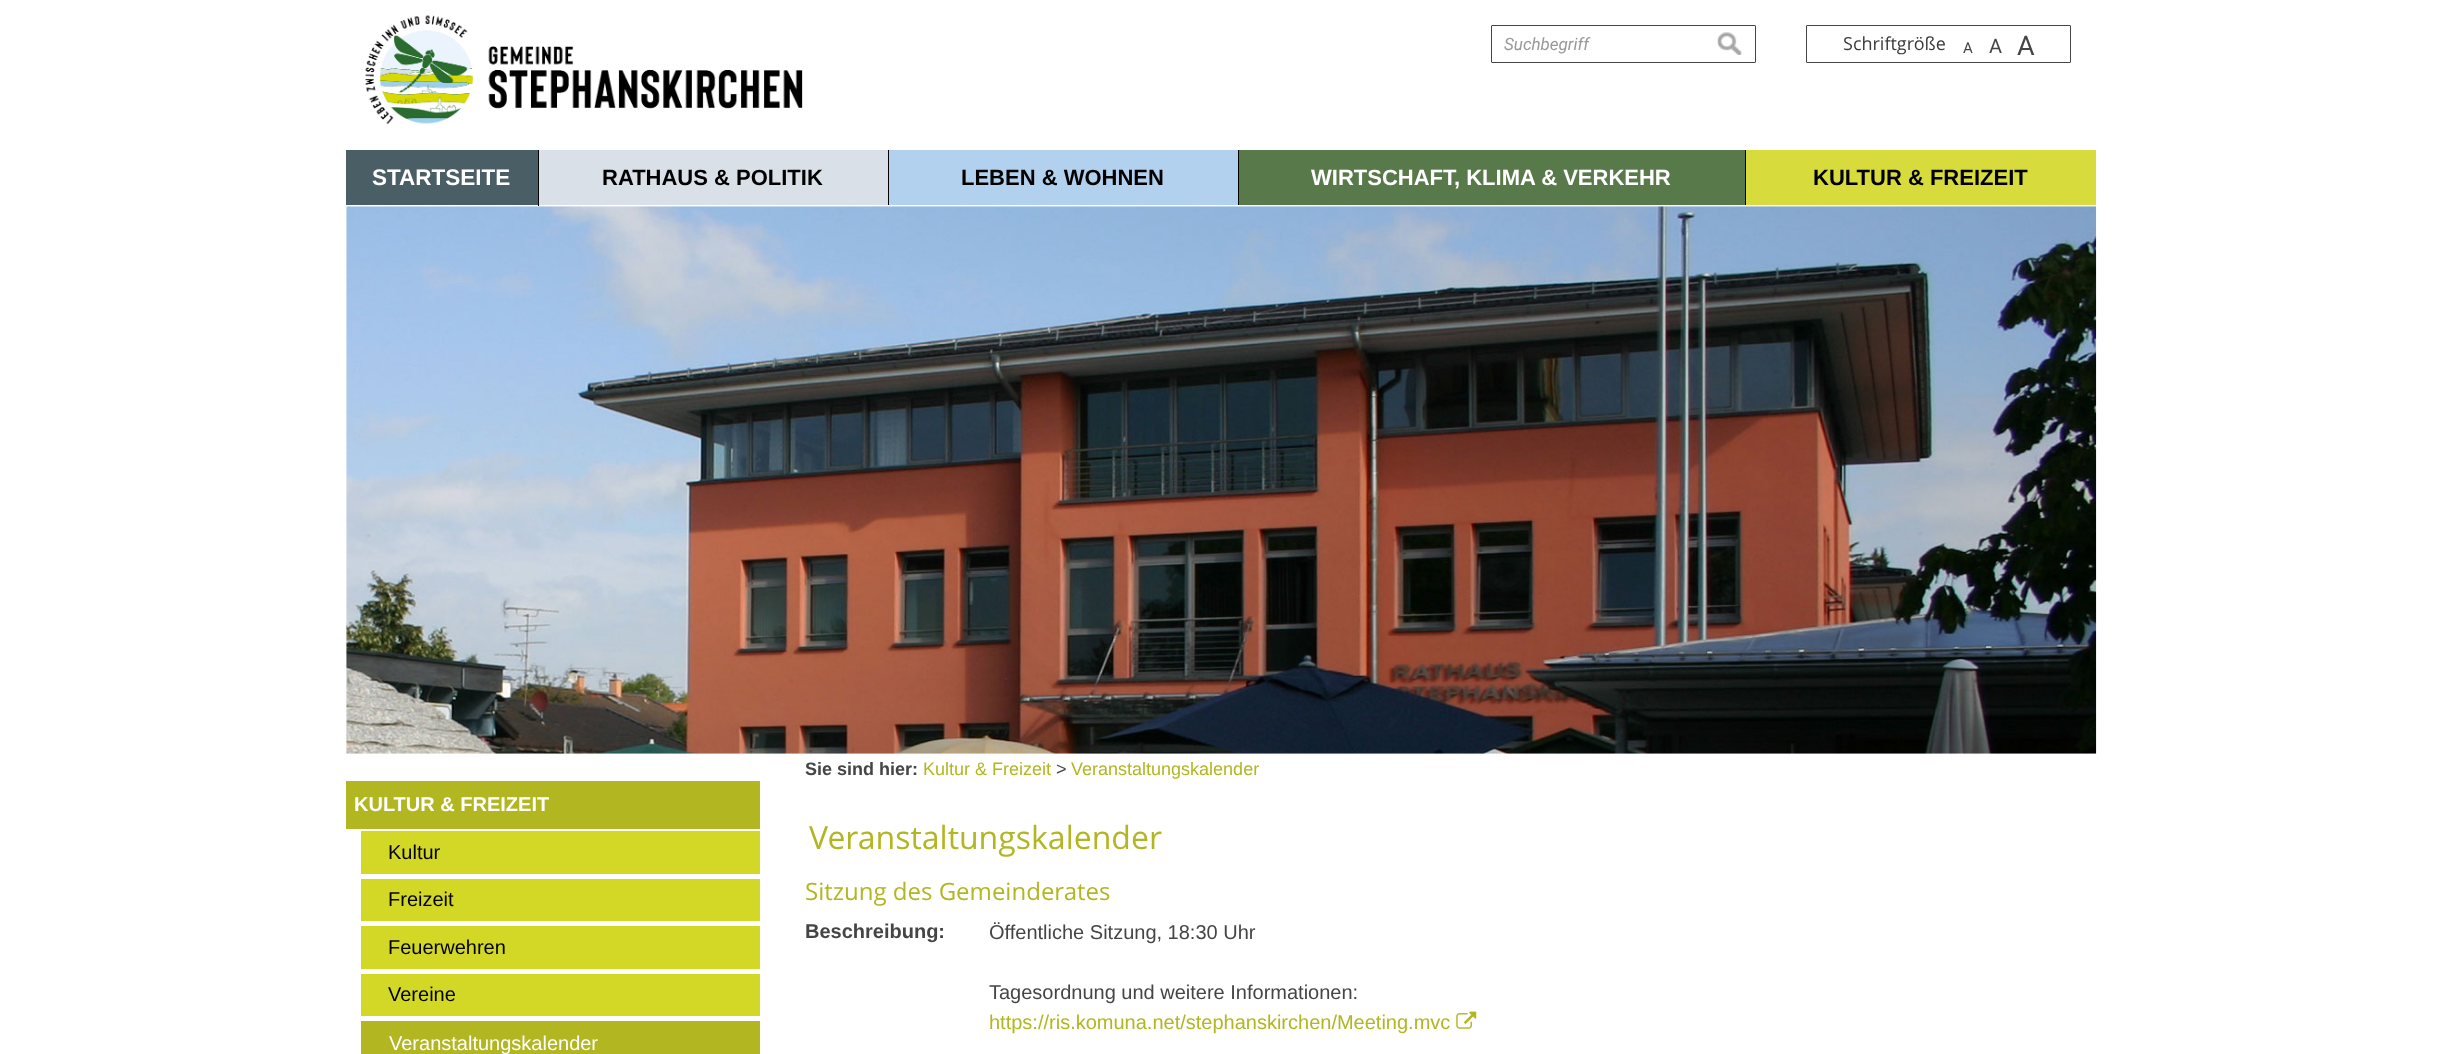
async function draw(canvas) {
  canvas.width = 2441;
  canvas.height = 1054;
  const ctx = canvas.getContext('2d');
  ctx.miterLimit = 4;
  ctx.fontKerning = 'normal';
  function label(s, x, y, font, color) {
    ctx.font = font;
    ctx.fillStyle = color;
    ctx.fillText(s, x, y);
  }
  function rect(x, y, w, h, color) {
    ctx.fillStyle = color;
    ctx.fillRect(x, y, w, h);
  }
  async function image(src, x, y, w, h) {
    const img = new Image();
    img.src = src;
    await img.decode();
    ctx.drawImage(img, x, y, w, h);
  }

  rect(0, 0, 2441, 1054, '#fff');
  await image('assets/img1.png', 365, 15, 438, 110);
  ctx.beginPath();
  ctx.roundRect(1491.5, 25.5, 264, 37, 0.5);
  ctx.strokeStyle = '#454545';
  ctx.stroke();
  label('Suchbegriff', 1504, 50, 'italic 17px Roboto', '#999');
  await image('assets/img2.png', 1717, 32, 25, 23);
  ctx.beginPath();
  ctx.roundRect(1806.5, 25.5, 264, 37, 0.5);
  ctx.stroke();
  label('Schriftgröße', 1843, 50, '18px Open Sans', '#3a3a3a');
  label('A', 1963, 53, '15px Roboto', '#454545');
  label('A', 1989, 53, '20px Roboto', '#454545');
  label('A', 2017, 55, '27px Roboto', '#454545');
  rect(346, 150, 192, 55, '#495e65');
  rect(538, 150, 1, 56, '#000');
  label('STARTSEITE', 372, 185, 'bold 22.5px Liberation Sans', '#fff');
  rect(539, 150, 349, 55, '#dae0e7');
  rect(888, 150, 1, 55, '#000');
  label('RATHAUS & POLITIK', 602, 185, 'bold 22px Liberation Sans', '#000');
  rect(889, 150, 349, 55, '#b2d1ee');
  rect(1238, 150, 1, 55, '#000');
  label('LEBEN & WOHNEN', 961, 185, 'bold 22px Liberation Sans', '#000');
  rect(1239, 150, 506, 55, '#587a4a');
  rect(1745, 150, 1, 55, '#000');
  label('WIRTSCHAFT, KLIMA & VERKEHR', 1311, 185, 'bold 22px Liberation Sans', '#fff');
  rect(1746, 150, 350, 55, '#d7db3c');
  label('KULTUR & FREIZEIT', 1813, 185, 'bold 22px Liberation Sans', '#000');
  await image('assets/img3.png', 346, 206, 1751, 548);
  rect(346, 781, 414, 48, '#b2b620');
  label('KULTUR & FREIZEIT', 354, 811, 'bold 20px Liberation Sans', '#fff');
  rect(361, 831, 399, 43, '#d3d726');
  label('Kultur', 388, 859, '20px Liberation Sans', '#000');
  rect(361, 879, 399, 42, '#d3d726');
  label('Freizeit', 388, 906, '20px Liberation Sans', '#000');
  rect(361, 926, 399, 43, '#d3d726');
  label('Feuerwehren', 388, 954, '20px Liberation Sans', '#000');
  rect(361, 974, 399, 42, '#d3d726');
  label('Vereine', 388, 1001, '20px Liberation Sans', '#000');
  rect(361, 1021, 399, 33, '#b2b620');
  label('Veranstaltungskalender', 389, 1050, '20px Liberation Sans', '#fff');
  label('Sie sind hier:', 805, 775, 'bold 18px Liberation Sans', '#454545');
  label('Kultur & Freizeit', 923, 775, '18px Liberation Sans', '#b2b620');
  label('>', 1056, 775, '18px Liberation Sans', '#454545');
  label('Veranstaltungskalender', 1071, 775, '18px Liberation Sans', '#b2b620');
  label('Veranstaltungskalender', 809, 849, '32px Open Sans', '#b2b620');
  label('Sitzung des Gemeinderates', 805, 900, '24px Open Sans', '#b2b620');
  label('Beschreibung:', 805, 938, 'bold 20px Liberation Sans', '#454545');
  label('Öffentliche Sitzung, 18:30 Uhr', 989, 939, '20px Liberation Sans', '#454545');
  label('Tagesordnung und weitere Informationen:', 989, 999, '20px Liberation Sans', '#454545');
  label('https://ris.komuna.net/stephanskirchen/Meeting.mvc', 989, 1029, '20px Liberation Sans', '#b2b620');
  await image('assets/img4.png', 1456, 1011, 21, 18);
}

draw(document.querySelector('canvas'));
